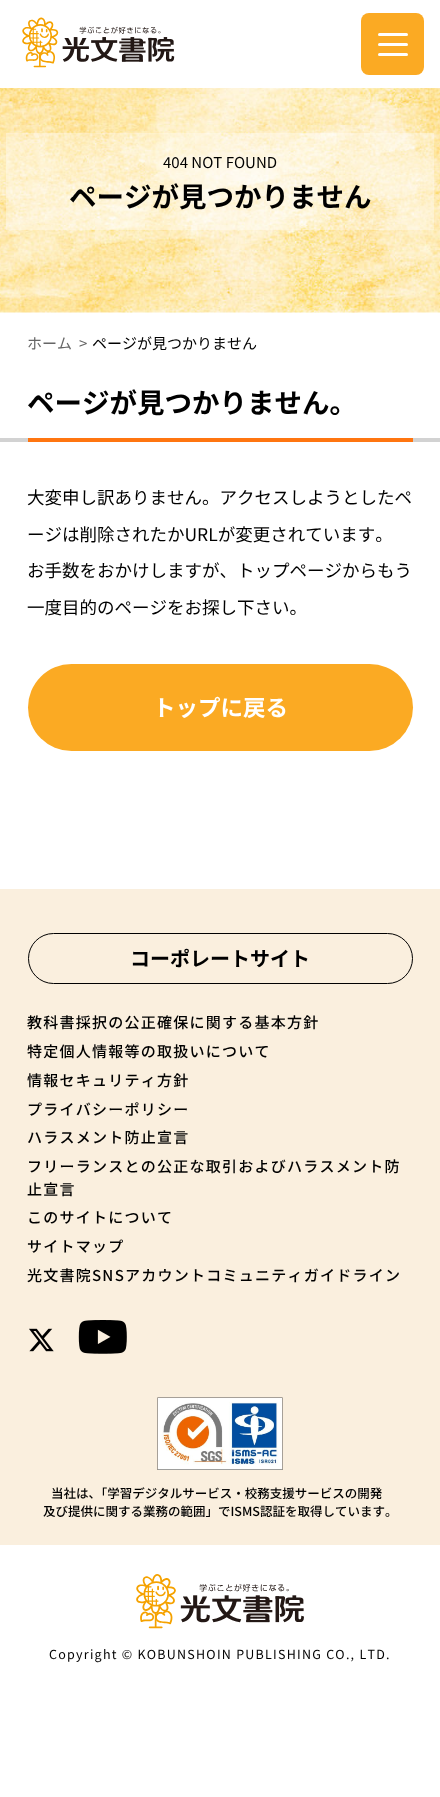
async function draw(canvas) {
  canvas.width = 440;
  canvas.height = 1797;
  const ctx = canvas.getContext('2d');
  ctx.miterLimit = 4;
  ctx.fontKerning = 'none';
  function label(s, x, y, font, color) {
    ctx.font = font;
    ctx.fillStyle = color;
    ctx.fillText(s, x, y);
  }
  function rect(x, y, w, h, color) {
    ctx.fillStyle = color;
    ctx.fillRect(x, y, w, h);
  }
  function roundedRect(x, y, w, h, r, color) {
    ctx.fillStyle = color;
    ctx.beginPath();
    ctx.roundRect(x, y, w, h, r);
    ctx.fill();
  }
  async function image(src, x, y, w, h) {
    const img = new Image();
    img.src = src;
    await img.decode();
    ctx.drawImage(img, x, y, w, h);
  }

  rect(0, 0, 440, 1797, '#fff');
  await image('assets/img1.png', 22, 17, 153, 51);
  roundedRect(361, 13, 63, 62, 8, '#fbaa23');
  roundedRect(378, 33, 30, 3, 1.5, '#fff');
  roundedRect(378, 43, 30, 3, 1.5, '#fff');
  roundedRect(378, 53, 30, 3, 1.5, '#fff');
  await image('assets/img2.png', 0, 88, 440, 225);
  rect(6, 133, 428, 97, '#ffffff5e');
  label('404 NOT FOUND', 163, 168, '15px Noto Sans JP', '#000');
  label('ページが見つかりません', 69, 207, 'bold 27.5px Noto Sans JP', '#000');
  label('ホーム', 27, 349, '15px Noto Sans JP', '#666');
  label('>', 79, 349, '15px Noto Sans JP', '#666');
  label('ページが見つかりません', 92, 349, '15px Noto Sans JP', '#000');
  rect(28, 438, 385, 4, '#ff7510');
  label('ページが見つかりません。', 27, 413, 'bold 27.5px Noto Sans JP', '#000');
  rect(0, 438, 28, 4, '#d2d2d2');
  rect(413, 438, 27, 4, '#d2d2d2');
  label('大変申し訳ありません。アクセスしようとしたペ', 27, 504, '17.5px Noto Sans JP', '#000');
  label('ージは削除されたかURLが変更されています。', 27, 541, '17.5px Noto Sans JP', '#000');
  label('お手数をおかけしますが、トップページからもう', 27, 577, '17.5px Noto Sans JP', '#000');
  label('一度目的のページをお探し下さい。', 27, 614, '17.5px Noto Sans JP', '#000');
  roundedRect(28, 664, 385, 87, 43.5, '#fbaa23');
  label('トップに戻る', 153, 716, 'bold 22.5px Noto Sans JP', '#fff');
  rect(0, 889, 440, 656, '#faefde');
  ctx.beginPath();
  ctx.roundRect(28.5, 933.5, 384, 50, 25);
  ctx.strokeStyle = '#000';
  ctx.stroke();
  label('コーポレートサイト', 130, 966, 'bold 20px Noto Sans JP', '#000');
  ctx.letterSpacing = '1.25px';
  label('教科書採択の公正確保に関する基本方針', 27, 1028, '500 15px Noto Sans JP', '#000');
  label('特定個人情報等の取扱いについて', 27, 1057, '500 15px Noto Sans JP', '#000');
  label('情報セキュリティ方針', 27, 1086, '500 15px Noto Sans JP', '#000');
  label('プライバシーポリシー', 27, 1115, '500 15px Noto Sans JP', '#000');
  label('ハラスメント防止宣言', 27, 1143, '500 15px Noto Sans JP', '#000');
  label('フリーランスとの公正な取引およびハラスメント防', 27, 1172, '500 15px Noto Sans JP', '#000');
  label('止宣言', 27, 1195, '500 15px Noto Sans JP', '#000');
  label('このサイトについて', 27, 1223, '500 15px Noto Sans JP', '#000');
  label('サイトマップ', 27, 1252, '500 15px Noto Sans JP', '#000');
  label('光文書院SNSアカウントコミュニティガイドライン', 27, 1281, '500 15px Noto Sans JP', '#000');
  await image('assets/img3.png', 29, 1328, 25, 24);
  await image('assets/img4.png', 78, 1320, 49, 34);
  await image('assets/img5.png', 157, 1397, 126, 73);
  ctx.letterSpacing = '0px';
  label('当社は、「学習デジタルサービス・校務支援サービスの開発', 51, 1498, '500 12.5px Noto Sans JP', '#000');
  label('及び提供に関する業務の範囲」でISMS認証を取得しています。', 43, 1516, '500 12.5px Noto Sans JP', '#000');
  await image('assets/img6.png', 136, 1574, 168, 55);
  ctx.letterSpacing = '1.25px';
  label('Copyright © KOBUNSHOIN PUBLISHING CO., LTD.', 49, 1659, '12.5px Noto Sans JP', '#000');
}

draw(document.querySelector('canvas'));
